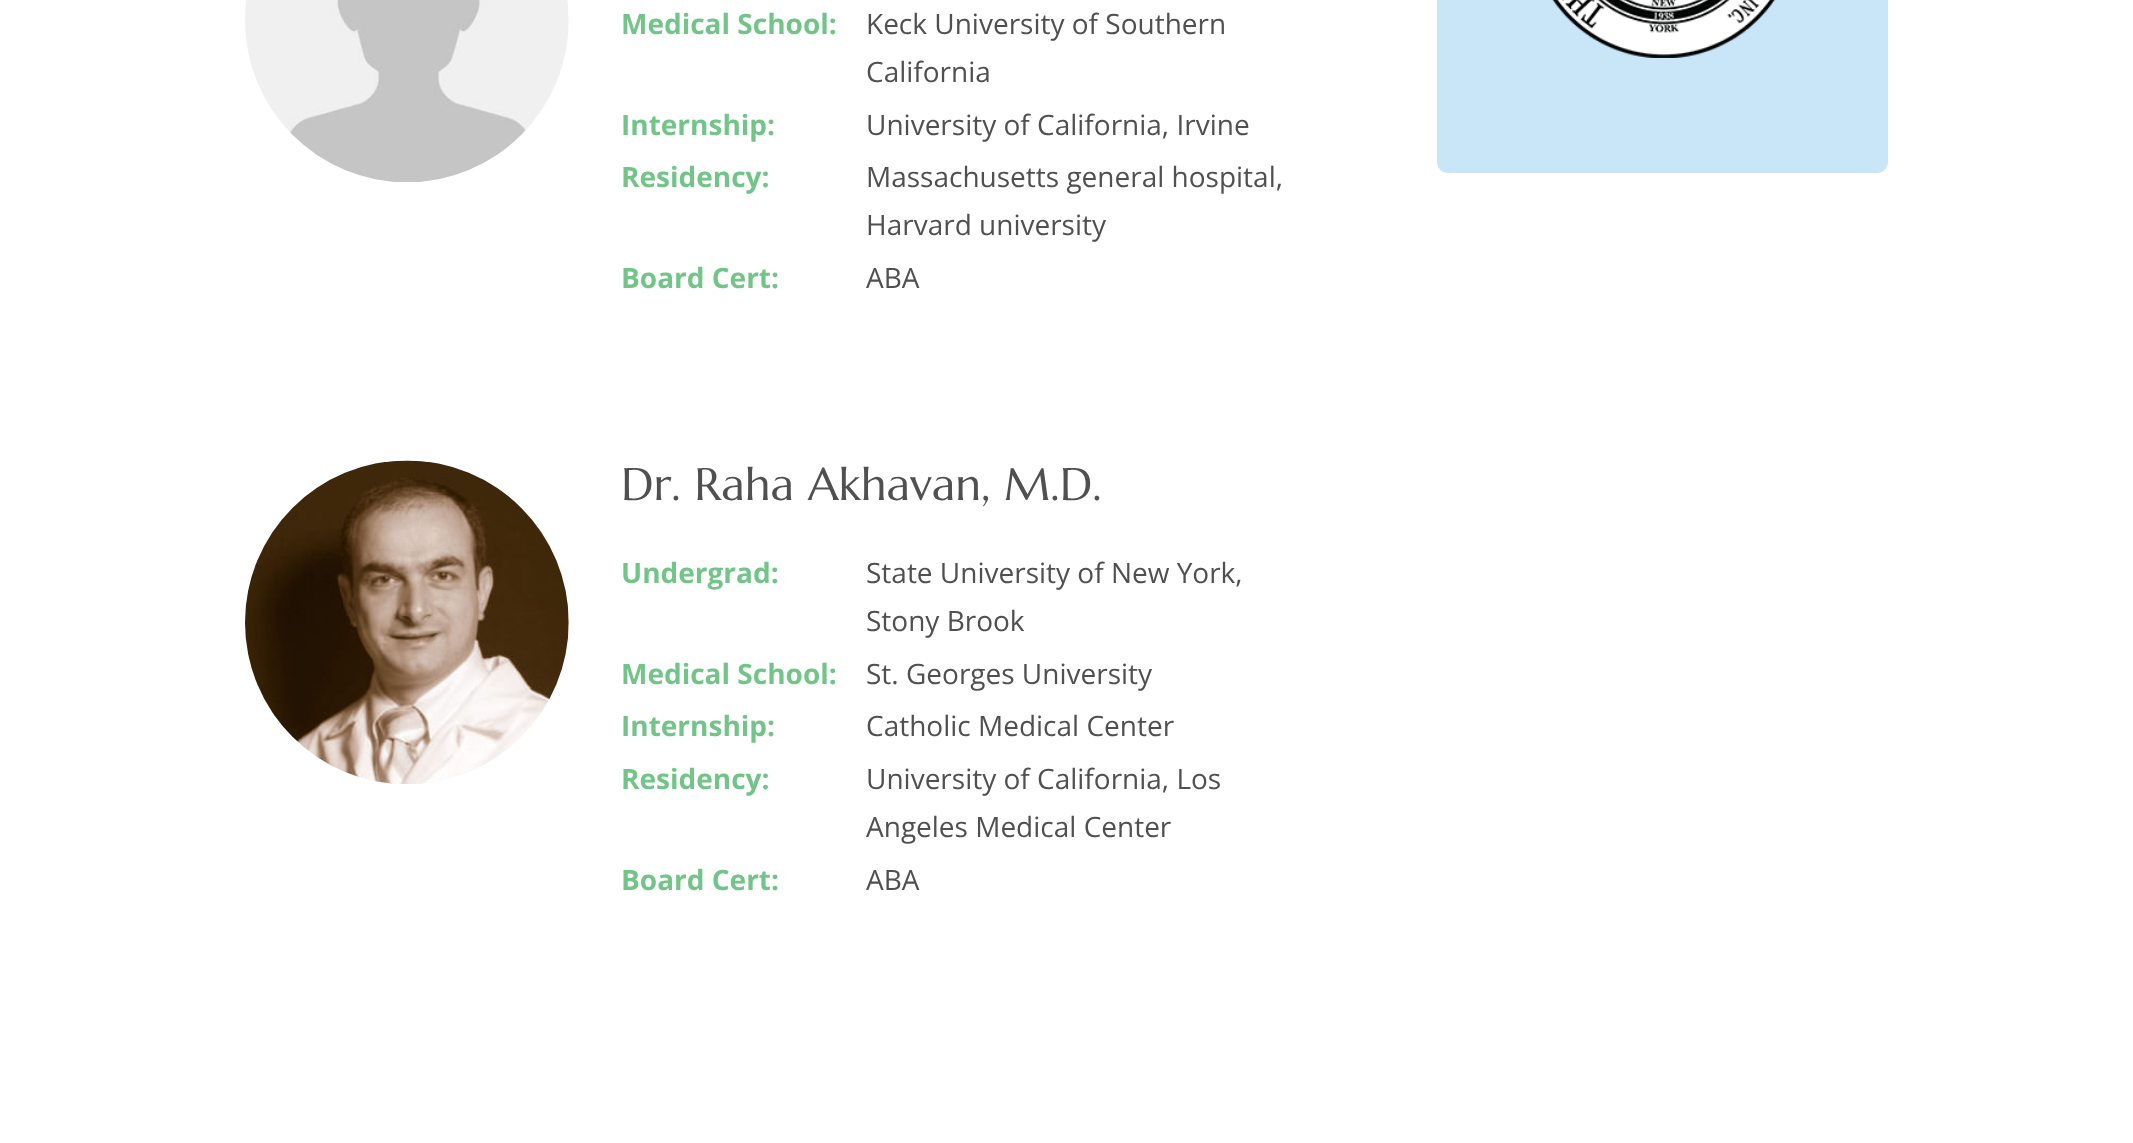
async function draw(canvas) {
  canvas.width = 2133;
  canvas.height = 1143;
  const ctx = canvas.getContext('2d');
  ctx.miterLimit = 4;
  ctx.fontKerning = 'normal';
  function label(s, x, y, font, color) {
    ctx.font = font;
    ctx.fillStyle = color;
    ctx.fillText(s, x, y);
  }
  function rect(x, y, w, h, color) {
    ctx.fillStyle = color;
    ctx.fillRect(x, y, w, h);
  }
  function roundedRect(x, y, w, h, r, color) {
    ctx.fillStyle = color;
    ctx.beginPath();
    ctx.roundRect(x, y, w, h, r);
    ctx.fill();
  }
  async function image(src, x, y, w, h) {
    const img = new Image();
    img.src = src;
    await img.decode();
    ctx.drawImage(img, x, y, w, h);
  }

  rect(0, 0, 2133, 1143, '#fff');
  await image('assets/img1.png', 245, 0, 324, 182);
  label('Medical School:', 621, 34, 'bold 28px Open Sans', '#72c488');
  label('Keck University of Southern', 866, 34, '28px Open Sans', '#505050');
  label('California', 866, 82, '28px Open Sans', '#505050');
  label('Internship:', 621, 135, 'bold 28px Open Sans', '#72c488');
  label('University of California, Irvine', 866, 135, '28px Open Sans', '#505050');
  label('Residency:', 621, 187, 'bold 28px Open Sans', '#72c488');
  label('Massachusetts general hospital,', 866, 187, '28px Open Sans', '#505050');
  label('Harvard university', 866, 235, '28px Open Sans', '#505050');
  label('Board Cert:', 621, 288, 'bold 28px Open Sans', '#72c488');
  label('ABA', 866, 288, '28px Open Sans', '#505050');
  await image('assets/img2.png', 245, 460, 324, 324);
  label('Dr. Raha Akhavan, M.D.', 621, 500, '45.5px Marcellus', '#505050');
  label('Undergrad:', 621, 583, 'bold 28px Open Sans', '#72c488');
  label('State University of New York,', 866, 583, '28px Open Sans', '#505050');
  label('Stony Brook', 866, 631, '28px Open Sans', '#505050');
  label('Medical School:', 621, 684, 'bold 28px Open Sans', '#72c488');
  label('St. Georges University', 866, 684, '28px Open Sans', '#505050');
  label('Internship:', 621, 736, 'bold 28px Open Sans', '#72c488');
  label('Catholic Medical Center', 866, 736, '28px Open Sans', '#505050');
  label('Residency:', 621, 789, 'bold 28px Open Sans', '#72c488');
  label('University of California, Los', 866, 789, '28px Open Sans', '#505050');
  label('Angeles Medical Center', 866, 837, '28px Open Sans', '#505050');
  label('Board Cert:', 621, 890, 'bold 28px Open Sans', '#72c488');
  label('ABA', 866, 890, '28px Open Sans', '#505050');
  roundedRect(1437, -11, 451, 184, 11, '#c9e5f8');
  await image('assets/img3.png', 1552, 0, 224, 58);
}

draw(document.querySelector('canvas'));
